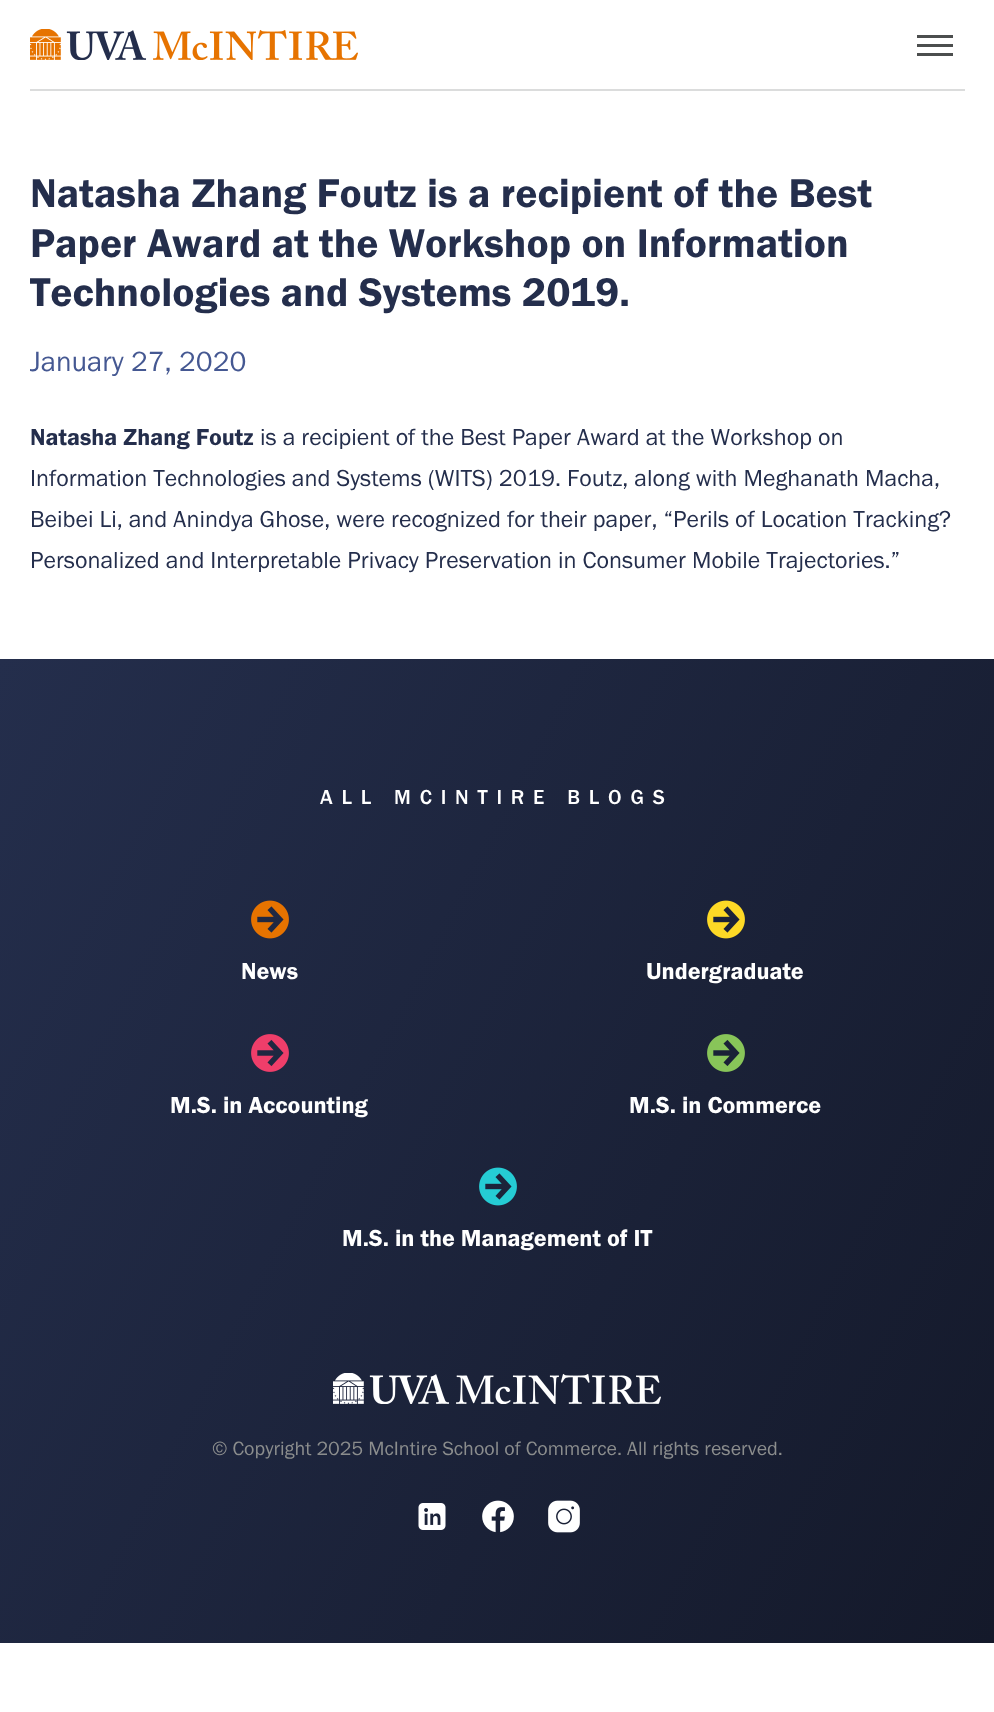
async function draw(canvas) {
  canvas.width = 994;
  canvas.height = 1712;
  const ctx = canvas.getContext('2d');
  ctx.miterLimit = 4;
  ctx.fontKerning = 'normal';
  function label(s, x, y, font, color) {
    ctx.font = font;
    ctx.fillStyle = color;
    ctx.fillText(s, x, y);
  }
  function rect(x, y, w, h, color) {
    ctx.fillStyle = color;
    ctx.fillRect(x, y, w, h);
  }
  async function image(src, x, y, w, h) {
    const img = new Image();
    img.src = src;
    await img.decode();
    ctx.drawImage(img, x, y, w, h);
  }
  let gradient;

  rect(0, 0, 994, 1712, '#fff');
  rect(30, 89, 935, 2, '#dbdcdc');
  await image('assets/img1.png', 30, 29, 328, 31);
  rect(917, 44, 36, 3, '#4b4e4e');
  rect(917, 35, 36, 3, '#4b4e4e');
  rect(917, 53, 36, 3, '#4b4e4e');
  label('Natasha Zhang Foutz is a recipient of the Best', 30, 207, '41.5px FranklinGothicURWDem', '#242e4c');
  label('Paper Award at the Workshop on Information', 30, 257, '41.5px FranklinGothicURWDem', '#242e4c');
  label('Technologies and Systems 2019.', 30, 306, '41.5px FranklinGothicURWDem', '#242e4c');
  label('January 27, 2020', 30, 371, '28.75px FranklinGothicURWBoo', '#455892');
  label('Natasha Zhang Foutz', 30, 445, '24px FranklinGothicURWDem', '#242e4c');
  label('is a recipient of the Best Paper Award at the Workshop on', 260, 445, '24px FranklinGothicURWBoo', '#242e4c');
  label('Information Technologies and Systems (WITS) 2019. Foutz, along with Meghanath Macha,', 30, 486, '24px FranklinGothicURWBoo', '#242e4c');
  label('Beibei Li, and Anindya Ghose, were recognized for their paper, “Perils of Location Tracking?', 30, 527, '24px FranklinGothicURWBoo', '#242e4c');
  label('Personalized and Interpretable Privacy Preservation in Consumer Mobile Trajectories.”', 30, 568, '24px FranklinGothicURWBoo', '#242e4c');
  gradient = ctx.createLinearGradient(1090, 1459, -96, 842);
  gradient.addColorStop(0, '#14192a');
  gradient.addColorStop(1, '#242e4c');
  ctx.fillStyle = gradient;
  ctx.fillRect(0, 659, 994, 984);
  ctx.letterSpacing = '8.8px';
  label('ALL MCINTIRE BLOGS', 320, 804, '21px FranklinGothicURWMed', '#fff');
  await image('assets/img2.png', 251, 900, 38, 39);
  ctx.letterSpacing = '0px';
  label('News', 241, 979, '24px FranklinGothicURWDem', '#fff');
  await image('assets/img3.png', 707, 900, 38, 39);
  label('Undergraduate', 646, 979, '24px FranklinGothicURWDem', '#fff');
  await image('assets/img4.png', 251, 1034, 38, 38);
  label('M.S. in Accounting', 170, 1113, '24px FranklinGothicURWDem', '#fff');
  await image('assets/img5.png', 707, 1034, 38, 38);
  label('M.S. in Commerce', 629, 1113, '24px FranklinGothicURWDem', '#fff');
  await image('assets/img6.png', 479, 1167, 38, 39);
  label('M.S. in the Management of IT', 342, 1246, '24px FranklinGothicURWDem', '#fff');
  await image('assets/img7.png', 333, 1373, 328, 31);
  label('© Copyright 2025 McIntire School of Commerce. All rights reserved.', 212, 1455, '20px FranklinGothicURWBoo', '#8b8d8d');
  await image('assets/img8.png', 418, 1503, 28, 27);
  await image('assets/img9.png', 482, 1500, 32, 33);
  await image('assets/img10.png', 548, 1500, 32, 33);
}

draw(document.querySelector('canvas'));
